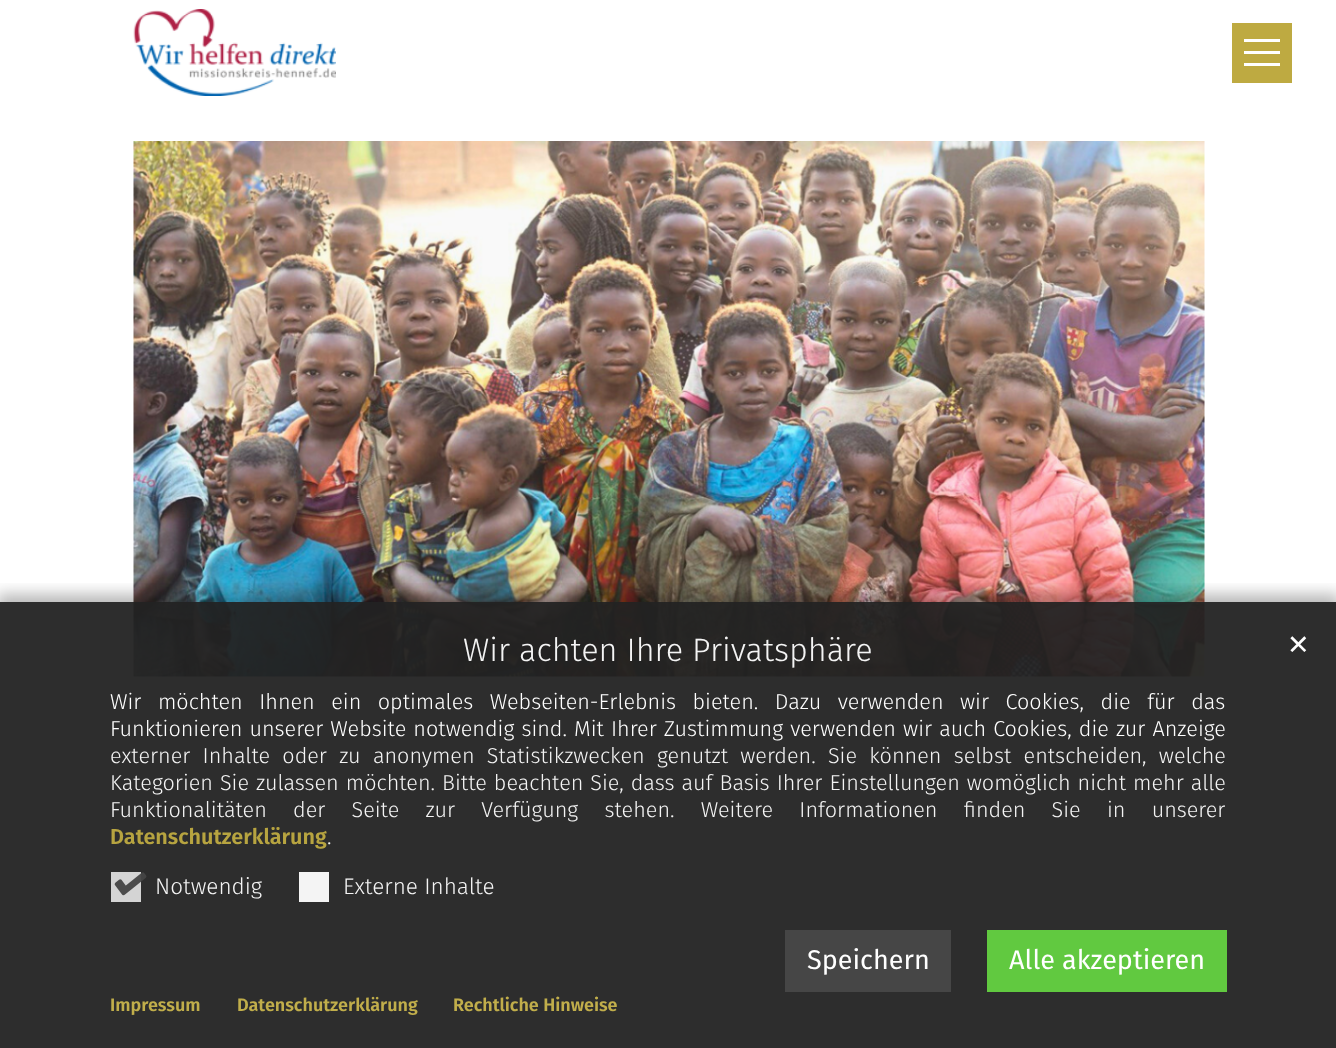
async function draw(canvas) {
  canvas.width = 1336;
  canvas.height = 1048;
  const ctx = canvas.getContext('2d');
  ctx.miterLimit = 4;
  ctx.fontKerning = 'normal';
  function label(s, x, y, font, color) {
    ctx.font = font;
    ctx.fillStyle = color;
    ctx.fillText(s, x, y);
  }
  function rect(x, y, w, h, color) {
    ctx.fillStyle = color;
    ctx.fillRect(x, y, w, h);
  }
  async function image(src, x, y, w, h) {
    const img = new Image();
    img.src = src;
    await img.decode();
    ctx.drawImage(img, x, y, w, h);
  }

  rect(0, 0, 1336, 1048, '#fff');
  await image('assets/img1.png', 133, 9, 203, 87);
  rect(1232, 23, 60, 60, '#beaa41');
  rect(1244, 51, 36, 3, '#fff');
  rect(1244, 39, 36, 3, '#fff');
  rect(1244, 63, 36, 3, '#fff');
  await image('assets/img2.png', 133, 141, 1072, 536);
  ctx.save();
  ctx.beginPath();
  ctx.rect(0, 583, 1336, 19);
  ctx.clip();
  ctx.fillStyle = '#00000047';
  ctx.filter = 'blur(7.5px)';
  ctx.beginPath();
  ctx.rect(-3, 594, 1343, 453);
  ctx.fill();
  ctx.filter = 'none';
  ctx.restore();
  rect(0, 602, 1336, 446, '#222222f2');
  label('Wir achten Ihre Privatsphäre', 463, 661, '300 32.4px Fira Sans', '#f4f4f4');
  label('✕', 1287, 654, '27px DejaVu Sans', '#fff');
  ctx.wordSpacing = '10.5px';
  label('Wir möchten Ihnen ein optimales Webseiten-Erlebnis bieten. Dazu verwenden wir Cookies, die für das', 110, 709, '300 21.6px Fira Sans', '#fff');
  ctx.wordSpacing = '1.1px';
  label('Funktionieren unserer Website notwendig sind. Mit Ihrer Zustimmung verwenden wir auch Cookies, die zur Anzeige', 110, 736, '300 21.6px Fira Sans', '#fff');
  ctx.wordSpacing = '6.25px';
  label('externer Inhalte oder zu anonymen Statistikzwecken genutzt werden. Sie können selbst entscheiden, welche', 110, 763, '300 21.6px Fira Sans', '#f4f4f4');
  ctx.wordSpacing = '1px';
  label('Kategorien Sie zulassen möchten. Bitte beachten Sie, dass auf Basis Ihrer Einstellungen womöglich nicht mehr alle', 110, 790, '300 21.6px Fira Sans', '#f4f4f4');
  ctx.wordSpacing = '20.25px';
  label('Funktionalitäten der Seite zur Verfügung stehen. Weitere Informationen finden Sie in unserer', 110, 817, '300 21.6px Fira Sans', '#f4f4f4');
  ctx.wordSpacing = '0px';
  label('Datenschutzerklärung', 110, 844, '600 21.6px Fira Sans', '#b7a440');
  label('.', 327, 844, '300 21.6px Fira Sans', '#f4f4f4');
  rect(111, 872, 30, 30, '#ddddddf2');
  await image('assets/img3.png', 114, 872, 33, 24);
  label('Notwendig', 155, 894, '300 22.5px Fira Sans', '#f4f4f4');
  rect(299, 872, 30, 30, '#fffffff2');
  label('Externe Inhalte', 343, 894, '300 22.5px Fira Sans', '#f4f4f4');
  rect(785, 930, 166, 62, '#464646');
  label('Speichern', 807, 969, '27px Fira Sans', '#fff');
  rect(987, 930, 240, 62, '#64d241f2');
  label('Alle akzeptieren', 1009, 969, '27px Fira Sans', '#fff');
  label('Impressum', 110, 1011, '600 18px Fira Sans', '#c1ae4b');
  label('Datenschutzerklärung', 237, 1011, '600 18px Fira Sans', '#c1ae4b');
  label('Rechtliche Hinweise', 453, 1011, '600 18px Fira Sans', '#c1ae4b');
}

draw(document.querySelector('canvas'));
